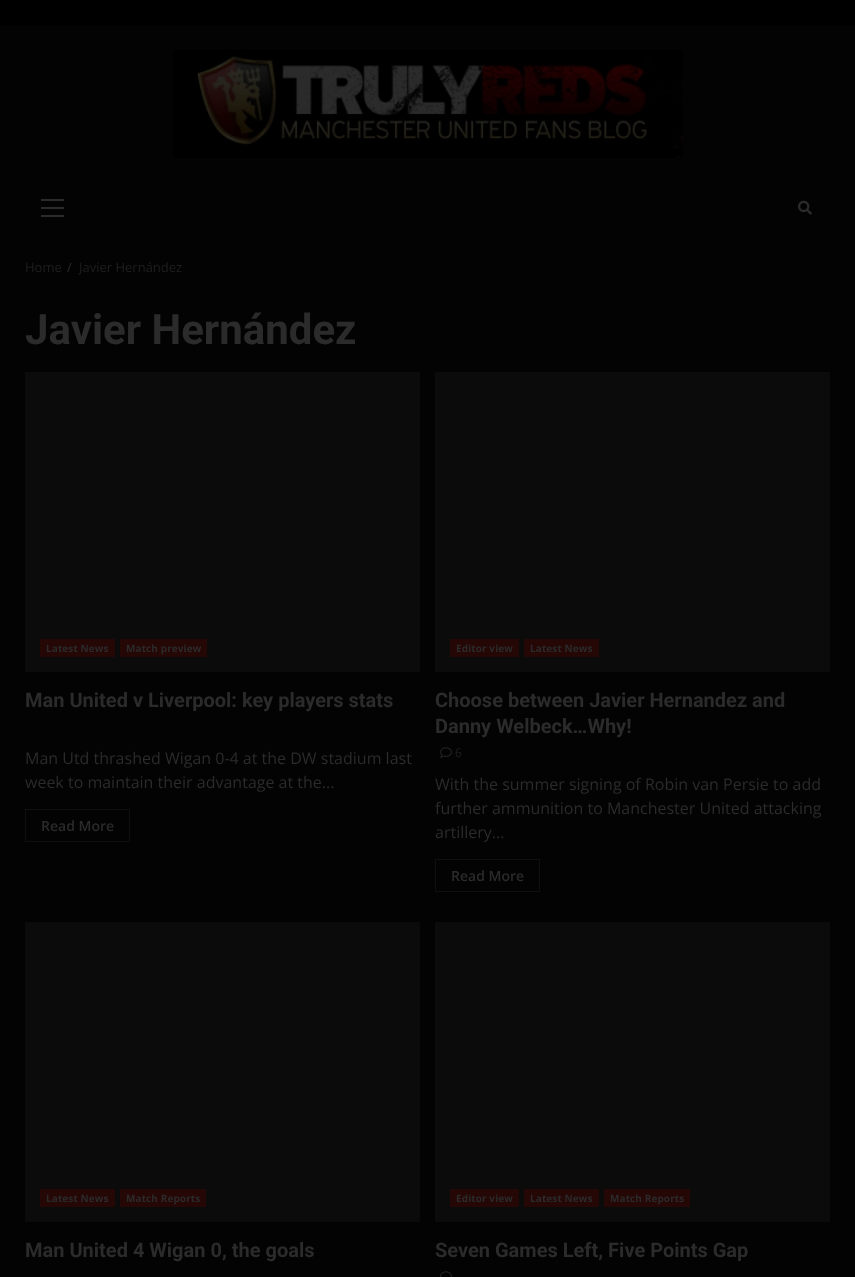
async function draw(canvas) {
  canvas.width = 855;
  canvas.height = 1277;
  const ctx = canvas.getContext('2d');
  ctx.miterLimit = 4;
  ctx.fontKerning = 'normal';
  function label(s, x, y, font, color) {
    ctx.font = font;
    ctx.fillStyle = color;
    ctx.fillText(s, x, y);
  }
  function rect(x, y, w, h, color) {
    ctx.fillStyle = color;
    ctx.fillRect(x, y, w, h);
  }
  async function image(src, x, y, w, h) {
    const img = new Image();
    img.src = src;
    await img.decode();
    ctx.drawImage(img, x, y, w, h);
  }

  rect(0, 0, 855, 1277, '#000');
  rect(0, 25, 855, 1252, '#030303');
  await image('assets/img1.png', 173, 50, 510, 108);
  rect(41, 207, 23, 2, '#2b2b2b');
  rect(41, 199, 23, 2, '#2b2b2b');
  rect(41, 215, 23, 2, '#2b2b2b');
  await image('assets/img2.png', 798, 200, 14, 15);
  label('Home', 25, 272, '13px Open Sans', '#1f1f1f');
  label('/', 67, 272, '13px Open Sans', '#2b2b2b');
  label('Javier Hernández', 79, 272, '13px Open Sans', '#1f1f1f');
  label('Javier Hernández', 25, 344, 'bold 42px Roboto', '#2b2b2b');
  rect(25, 372, 395, 300, '#0b0b0b');
  rect(40, 639, 75, 18, '#250706');
  ctx.letterSpacing = '0.1px';
  label('Latest News', 46, 652, 'bold 10px Open Sans', '#2b2b2b');
  rect(120, 639, 87, 18, '#250706');
  label('Match preview', 126, 652, 'bold 10px Open Sans', '#2b2b2b');
  ctx.letterSpacing = '0px';
  label('Man United v Liverpool: key players stats', 25, 707, 'bold 20px Roboto', '#2b2b2b');
  label('Man Utd thrashed Wigan 0-4 at the DW stadium last', 25, 764, '16px Open Sans', '#2b2b2b');
  label('week to maintain their advantage at the...', 25, 788, '16px Open Sans', '#2b2b2b');
  ctx.strokeStyle = '#0f0f0f';
  ctx.strokeRect(25.5, 809.5, 104, 32);
  label('Read More', 41, 831, '600 14px Open Sans', '#2b2b2b');
  rect(435, 372, 395, 300, '#0b0b0b');
  rect(450, 639, 69, 18, '#250706');
  ctx.letterSpacing = '0.1px';
  label('Editor view', 456, 652, 'bold 10px Open Sans', '#2b2b2b');
  rect(524, 639, 75, 18, '#250706');
  label('Latest News', 530, 652, 'bold 10px Open Sans', '#2b2b2b');
  ctx.letterSpacing = '0px';
  label('Choose between Javier Hernandez and', 435, 707, 'bold 20px Roboto', '#2b2b2b');
  label('Danny Welbeck…Why!', 435, 733, 'bold 20px Roboto', '#2b2b2b');
  await image('assets/img3.png', 440, 747, 12, 11);
  label('6', 455, 757, '12px Open Sans', '#1f1f1f');
  label('With the summer signing of Robin van Persie to add', 435, 790, '16px Open Sans', '#2b2b2b');
  label('further ammunition to Manchester United attacking', 435, 814, '16px Open Sans', '#2b2b2b');
  label('artillery...', 435, 838, '16px Open Sans', '#2b2b2b');
  ctx.strokeRect(435.5, 859.5, 104, 32);
  label('Read More', 451, 881, '600 14px Open Sans', '#2b2b2b');
  rect(25, 922, 395, 300, '#0b0b0b');
  rect(40, 1189, 75, 18, '#250706');
  ctx.letterSpacing = '0.1px';
  label('Latest News', 46, 1202, 'bold 10px Open Sans', '#2b2b2b');
  rect(120, 1189, 86, 18, '#250706');
  label('Match Reports', 126, 1202, 'bold 10px Open Sans', '#2b2b2b');
  ctx.letterSpacing = '0px';
  label('Man United 4 Wigan 0, the goals', 25, 1257, 'bold 20px Roboto', '#2b2b2b');
  rect(435, 922, 395, 300, '#0b0b0b');
  rect(450, 1189, 69, 18, '#250706');
  ctx.letterSpacing = '0.1px';
  label('Editor view', 456, 1202, 'bold 10px Open Sans', '#2b2b2b');
  rect(524, 1189, 75, 18, '#250706');
  label('Latest News', 530, 1202, 'bold 10px Open Sans', '#2b2b2b');
  rect(604, 1189, 86, 18, '#250706');
  label('Match Reports', 610, 1202, 'bold 10px Open Sans', '#2b2b2b');
  ctx.letterSpacing = '0px';
  label('Seven Games Left, Five Points Gap', 435, 1257, 'bold 20px Roboto', '#2b2b2b');
  await image('assets/img4.png', 440, 1271, 12, 6);
}

draw(document.querySelector('canvas'));
